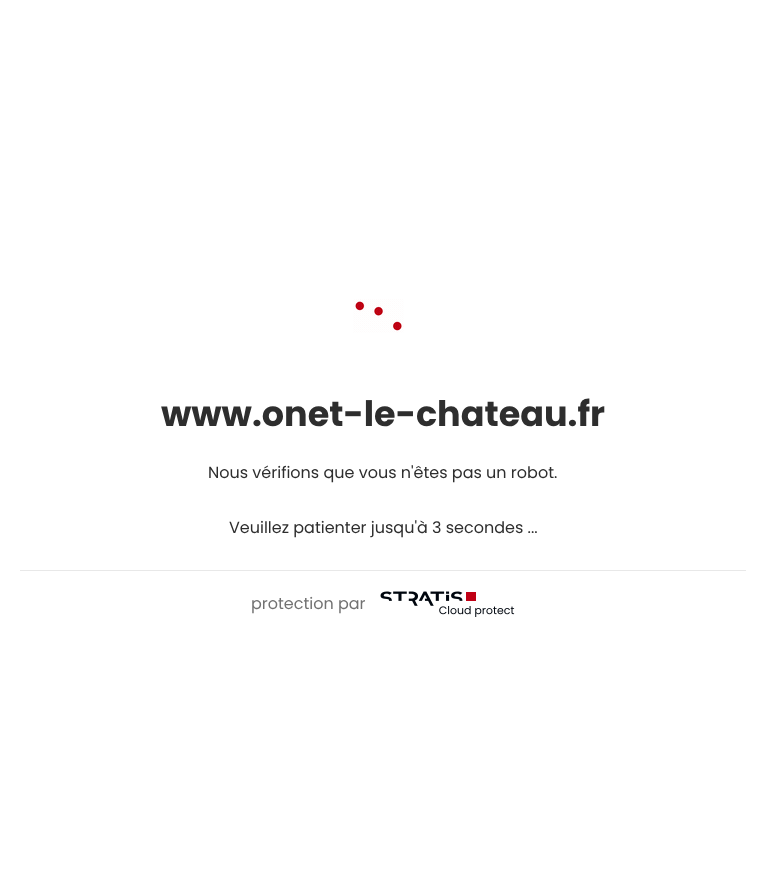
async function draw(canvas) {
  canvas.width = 766;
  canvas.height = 885;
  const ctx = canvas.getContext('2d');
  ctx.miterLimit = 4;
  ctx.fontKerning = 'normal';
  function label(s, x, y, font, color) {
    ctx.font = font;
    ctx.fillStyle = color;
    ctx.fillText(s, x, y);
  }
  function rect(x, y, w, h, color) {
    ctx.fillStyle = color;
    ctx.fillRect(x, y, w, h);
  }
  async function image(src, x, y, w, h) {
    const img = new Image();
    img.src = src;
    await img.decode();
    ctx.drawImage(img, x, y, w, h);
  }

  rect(0, 0, 766, 885, '#fff');
  await image('assets/img1.png', 353, 299, 51, 34);
  label('www.onet-le-chateau.fr', 161, 426, 'bold 35px Poppins', '#2e2e2e');
  label('Nous vérifions que vous n\'êtes pas un robot.', 208, 478, '16px Poppins', '#2e2e2e');
  label('Veuillez patienter jusqu\'à 3 secondes ...', 229, 533, '16px Poppins', '#2e2e2e');
  rect(20, 570, 726, 1, '#e8e8e8');
  label('protection par', 251, 609, '16px Poppins', '#727272');
  await image('assets/img2.png', 380, 591, 135, 26);
}

draw(document.querySelector('canvas'));
